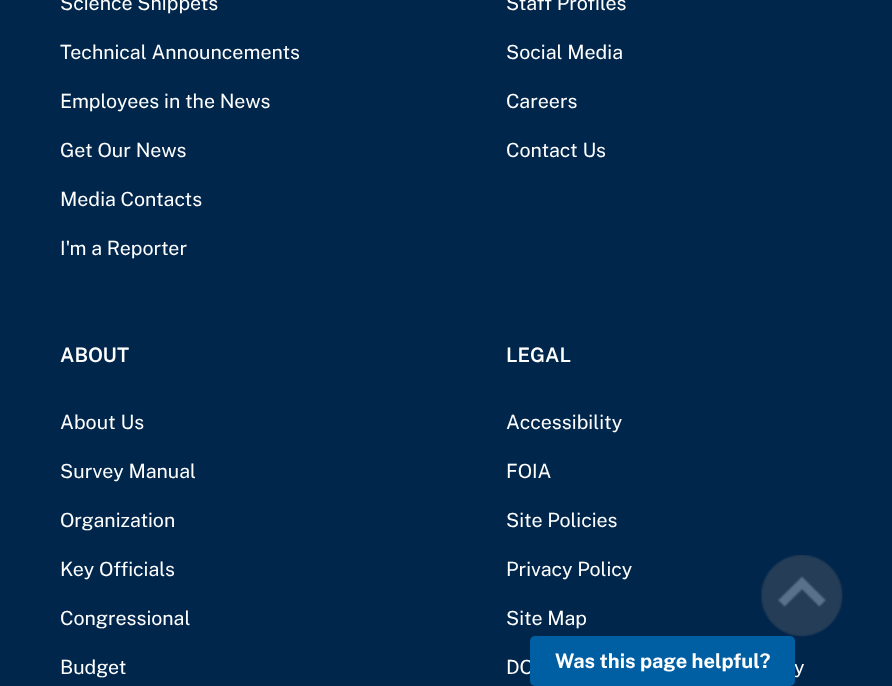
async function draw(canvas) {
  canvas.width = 892;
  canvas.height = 686;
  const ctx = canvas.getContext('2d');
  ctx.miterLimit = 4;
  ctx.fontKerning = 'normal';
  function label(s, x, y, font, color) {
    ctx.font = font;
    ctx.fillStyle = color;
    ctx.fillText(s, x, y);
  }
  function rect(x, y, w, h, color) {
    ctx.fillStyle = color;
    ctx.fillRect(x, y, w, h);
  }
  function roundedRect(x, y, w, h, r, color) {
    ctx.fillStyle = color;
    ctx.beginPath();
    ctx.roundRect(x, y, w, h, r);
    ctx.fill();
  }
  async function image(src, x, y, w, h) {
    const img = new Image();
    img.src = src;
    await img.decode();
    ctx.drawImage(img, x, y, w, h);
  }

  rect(0, 0, 892, 686, '#00264c');
  label('Science Snippets', 60, 10, '19.6px Public Sans', '#fff');
  label('Technical Announcements', 60, 59, '19.6px Public Sans', '#fff');
  label('Employees in the News', 60, 108, '19.6px Public Sans', '#fff');
  label('Get Our News', 60, 157, '19.6px Public Sans', '#fff');
  label('Media Contacts', 60, 206, '19.6px Public Sans', '#fff');
  label('I\'m a Reporter', 60, 255, '19.6px Public Sans', '#fff');
  label('Staff Profiles', 506, 10, '19.6px Public Sans', '#fff');
  label('Social Media', 506, 59, '19.6px Public Sans', '#fff');
  label('Careers', 506, 108, '19.6px Public Sans', '#fff');
  label('Contact Us', 506, 157, '19.6px Public Sans', '#fff');
  label('ABOUT', 60, 362, '600 20px Public Sans', '#fff');
  label('About Us', 60, 429, '19.6px Public Sans', '#fff');
  label('Survey Manual', 60, 478, '19.6px Public Sans', '#fff');
  label('Organization', 60, 527, '19.6px Public Sans', '#fff');
  label('Key Officials', 60, 576, '19.6px Public Sans', '#fff');
  label('Congressional', 60, 625, '19.6px Public Sans', '#fff');
  label('Budget', 60, 674, '19.6px Public Sans', '#fff');
  label('LEGAL', 506, 362, '600 20px Public Sans', '#fff');
  label('Accessibility', 506, 429, '19.6px Public Sans', '#fff');
  label('FOIA', 506, 478, '19.6px Public Sans', '#fff');
  label('Site Policies', 506, 527, '19.6px Public Sans', '#fff');
  label('Privacy Policy', 506, 576, '19.6px Public Sans', '#fff');
  label('Site Map', 506, 625, '19.6px Public Sans', '#fff');
  label('DO', 506, 674, '19.6px Public Sans', '#fff');
  label('y', 794, 674, '19.6px Public Sans', '#fff');
  await image('assets/img1.png', 761, 555, 82, 82);
  roundedRect(530, 636, 265, 50, 5, '#005ea2');
  label('Was this page helpful?', 555, 668, 'bold 20px Public Sans', '#fff');
}

draw(document.querySelector('canvas'));
